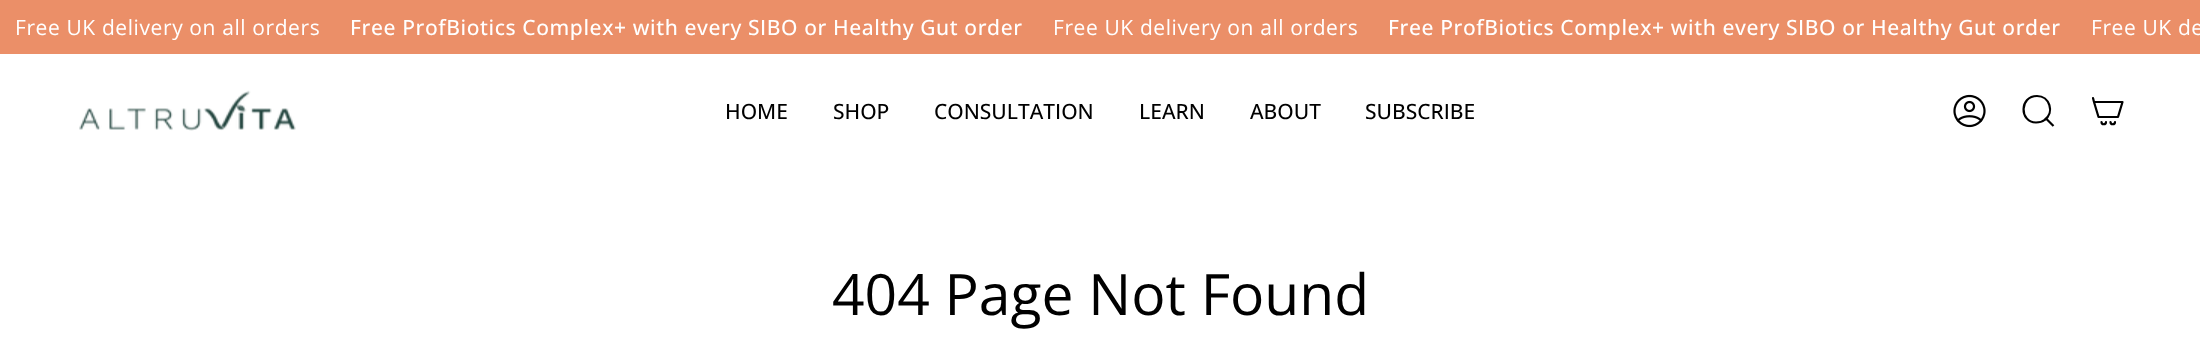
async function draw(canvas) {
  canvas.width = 2200;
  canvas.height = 358;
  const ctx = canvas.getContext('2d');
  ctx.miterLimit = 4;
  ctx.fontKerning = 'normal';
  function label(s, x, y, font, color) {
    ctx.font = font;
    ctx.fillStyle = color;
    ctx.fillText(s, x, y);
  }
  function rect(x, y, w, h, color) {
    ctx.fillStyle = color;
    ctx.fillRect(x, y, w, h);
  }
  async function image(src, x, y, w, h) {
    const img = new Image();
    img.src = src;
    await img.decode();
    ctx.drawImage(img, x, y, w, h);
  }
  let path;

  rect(0, 0, 2200, 358, '#fff');
  rect(0, 0, 2200, 54, '#eb8f68');
  ctx.letterSpacing = '0.6px';
  label('Free UK delivery on all orders', 15, 35, '21px Open Sans', '#fff');
  label('Free ProfBiotics Complex+ with every SIBO or Healthy Gut order', 350, 35, '500 21px Open Sans', '#fff');
  label('Free UK delivery on all orders', 1053, 35, '21px Open Sans', '#fff');
  label('Free ProfBiotics Complex+ with every SIBO or Healthy Gut order', 1388, 35, '500 21px Open Sans', '#fff');
  label('Free UK de', 2091, 35, '21px Open Sans', '#fff');
  await image('assets/img1.png', 79, 90, 217, 41);
  ctx.letterSpacing = '0px';
  label('HOME', 725, 119, '500 21px Open Sans', '#000');
  label('SHOP', 833, 119, '500 21px Open Sans', '#000');
  label('CONSULTATION', 934, 119, '500 21px Open Sans', '#000');
  label('LEARN', 1139, 119, '500 21px Open Sans', '#000');
  label('ABOUT', 1250, 119, '500 21px Open Sans', '#000');
  label('SUBSCRIBE', 1365, 119, '500 21px Open Sans', '#000');
  await image('assets/img2.png', 1953, 94, 33, 34);
  path = new Path2D('M2037 96C2049.5 96 2055 112.5 2044.5 120C2042 122 2039 122.5 2036 122.5C2019 122 2019.5 96 2037 96ZM2046 118.5L2053.5 126');
  ctx.strokeStyle = '#000';
  ctx.lineWidth = 2.2;
  ctx.stroke(path);
  path = new Path2D('M2094 102H2122.5L2118 117H2098.5ZM2094 102L2093 98M2106 122C2106 125 2101.5 125 2101.5 122M2115 122C2115 125 2110.5 125 2110.5 122');
  ctx.lineCap = 'round';
  ctx.lineJoin = 'round';
  ctx.stroke(path);
  label('404 Page Not Found', 832, 315, '57px Open Sans', '#000');
}

draw(document.querySelector('canvas'));
